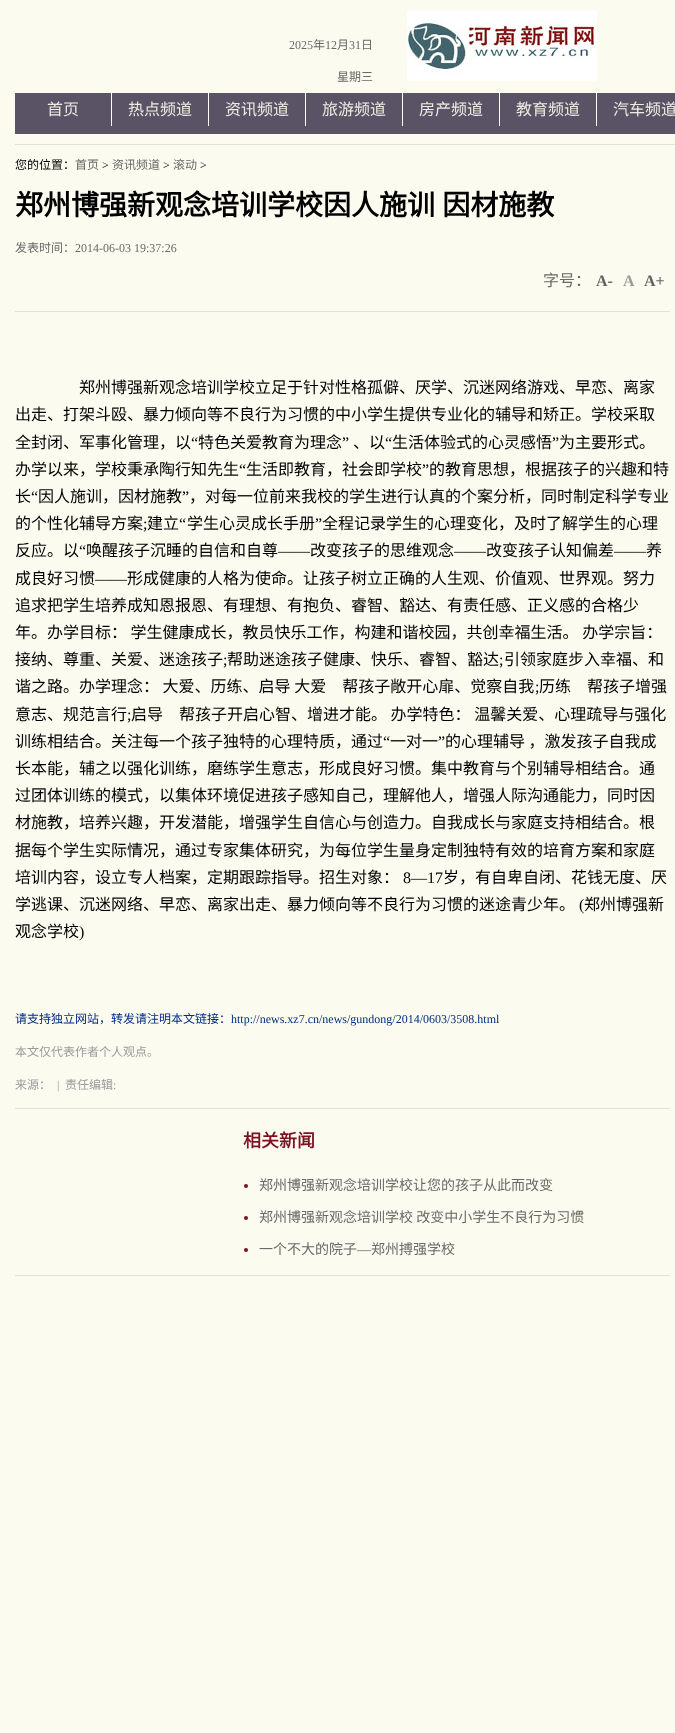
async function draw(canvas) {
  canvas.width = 675;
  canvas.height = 1733;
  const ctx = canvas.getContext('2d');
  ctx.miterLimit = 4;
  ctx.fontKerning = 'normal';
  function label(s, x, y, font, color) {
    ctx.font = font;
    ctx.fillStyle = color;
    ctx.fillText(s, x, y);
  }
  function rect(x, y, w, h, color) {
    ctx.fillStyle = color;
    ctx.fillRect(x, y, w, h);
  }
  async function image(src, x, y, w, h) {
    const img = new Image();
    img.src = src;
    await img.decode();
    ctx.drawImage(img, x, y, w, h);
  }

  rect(0, 0, 675, 1733, '#fcfbf0');
  label('2025', 289, 49, '12px Liberation Serif', '#696967');
  label('年', 313, 49, '12px Noto Sans CJK SC', '#696967');
  label('12', 325, 49, '12px Liberation Serif', '#696967');
  label('月', 337, 49, '12px Noto Sans CJK SC', '#696967');
  label('31', 349, 49, '12px Liberation Serif', '#696967');
  label('日', 361, 49, '12px Noto Sans CJK SC', '#696967');
  label('星期三', 337, 81, '12px Noto Sans CJK SC', '#696967');
  await image('assets/img1.png', 407, 11, 190, 70);
  rect(15, 93, 660, 41, '#5a5365');
  rect(111, 93, 1, 33, '#fff');
  label('首页', 47, 115, '16px Noto Sans CJK SC', '#ecebe3');
  rect(208, 93, 1, 33, '#fff');
  label('热点频道', 128, 115, '16px Noto Sans CJK SC', '#ecebe3');
  rect(305, 93, 1, 33, '#fff');
  label('资讯频道', 225, 115, '16px Noto Sans CJK SC', '#ecebe3');
  rect(402, 93, 1, 33, '#fff');
  label('旅游频道', 322, 115, '16px Noto Sans CJK SC', '#ecebe3');
  rect(499, 93, 1, 33, '#fff');
  label('房产频道', 419, 115, '16px Noto Sans CJK SC', '#ecebe3');
  rect(596, 93, 1, 33, '#fff');
  label('教育频道', 516, 115, '16px Noto Sans CJK SC', '#ecebe3');
  label('汽车频道', 613, 115, '16px Noto Sans CJK SC', '#ecebe3');
  rect(15, 144, 660, 1, '#e3e2d9');
  label('您的位置：', 15, 169, '12px Noto Sans CJK SC', '#000');
  label('首页', 75, 169, '12px Noto Sans CJK SC', '#696967');
  label('>', 102, 169, '12px Liberation Serif', '#000');
  label('资讯频道', 112, 169, '12px Noto Sans CJK SC', '#696967');
  label('>', 163, 169, '12px Liberation Serif', '#000');
  label('滚动', 173, 169, '12px Noto Sans CJK SC', '#696967');
  label('>', 200, 169, '12px Liberation Serif', '#000');
  ctx.wordSpacing = '1px';
  label('郑州博强新观念培训学校因人施训 因材施教', 15, 215, 'bold 28px Noto Sans CJK SC', '#000');
  ctx.wordSpacing = '0px';
  label('发表时间：', 15, 252, '12px Noto Sans CJK SC', '#696967');
  label('2014-06-03 19:37:26', 75, 252, '12px Liberation Serif', '#696967');
  label('字号：', 543, 286, '16px Noto Sans CJK SC', '#696967');
  label('A-', 596, 286, 'bold 16px Liberation Serif', '#646265');
  label('A', 623, 286, 'bold 16px Liberation Serif', '#9c9a9b');
  label('A+', 644, 286, 'bold 16px Liberation Serif', '#646265');
  rect(15, 311, 655, 1, '#e3e2d9');
  label('郑州博强新观念培训学校立足于针对性格孤僻、厌学、沉迷网络游戏、早恋、离家', 79, 393, '16px Noto Sans CJK SC', '#000');
  label('出走、打架斗殴、暴力倾向等不良行为习惯的中小学生提供专业化的辅导和矫正。学校采取', 15, 420, '16px Noto Sans CJK SC', '#000');
  label('全封闭、军事化管理，以', 15, 448, '16px Noto Sans CJK SC', '#000');
  label('“', 191, 448, '16px Liberation Serif', '#000');
  label('特色关爱教育为理念', 198, 448, '16px Noto Sans CJK SC', '#000');
  label('”', 342, 448, '16px Liberation Serif', '#000');
  label('、以', 353, 448, '16px Noto Sans CJK SC', '#000');
  label('“', 385, 448, '16px Liberation Serif', '#000');
  label('生活体验式的心灵感悟', 392, 448, '16px Noto Sans CJK SC', '#000');
  label('”', 552, 448, '16px Liberation Serif', '#000');
  label('为主要形式。', 559, 448, '16px Noto Sans CJK SC', '#000');
  label('办学以来，学校秉承陶行知先生', 15, 475, '16px Noto Sans CJK SC', '#000');
  label('“', 239, 475, '16px Liberation Serif', '#000');
  label('生活即教育，社会即学校', 246, 475, '16px Noto Sans CJK SC', '#000');
  label('”', 422, 475, '16px Liberation Serif', '#000');
  label('的教育思想，根据孩子的兴趣和特', 429, 475, '16px Noto Sans CJK SC', '#000');
  label('长', 15, 502, '16px Noto Sans CJK SC', '#000');
  label('“', 31, 502, '16px Liberation Serif', '#000');
  label('因人施训，因材施教', 38, 502, '16px Noto Sans CJK SC', '#000');
  label('”', 182, 502, '16px Liberation Serif', '#000');
  label('，对每一位前来我校的学生进行认真的个案分析，同时制定科学专业', 189, 502, '16px Noto Sans CJK SC', '#000');
  label('的个性化辅导方案', 15, 529, '16px Noto Sans CJK SC', '#000');
  label('建立', 147, 529, '16px Noto Sans CJK SC', '#000');
  label('“', 179, 529, '16px Liberation Serif', '#000');
  label('学生心灵成长手册', 187, 529, '16px Noto Sans CJK SC', '#000');
  label('”', 315, 529, '16px Liberation Serif', '#000');
  label('全程记录学生的心理变化，及时了解学生的心理', 322, 529, '16px Noto Sans CJK SC', '#000');
  label(';', 143, 529, '16px Liberation Serif', '#000');
  label('反应。以', 15, 556, '16px Noto Sans CJK SC', '#000');
  label('“', 79, 556, '16px Liberation Serif', '#000');
  label('唤醒孩子沉睡的自信和自尊', 86, 556, '16px Noto Sans CJK SC', '#000');
  label('改变孩子的思维观念', 310, 556, '16px Noto Sans CJK SC', '#000');
  label('改变孩子认知偏差', 486, 556, '16px Noto Sans CJK SC', '#000');
  label('——', 614, 556, '16px Liberation Serif', '#000');
  label('养', 646, 556, '16px Noto Sans CJK SC', '#000');
  label('——', 278, 556, '16px Liberation Serif', '#000');
  label('——', 454, 556, '16px Liberation Serif', '#000');
  label('成良好习惯', 15, 584, '16px Noto Sans CJK SC', '#000');
  label('——', 95, 584, '16px Liberation Serif', '#000');
  label('形成健康的人格为使命。让孩子树立正确的人生观、价值观、世界观。努力', 127, 584, '16px Noto Sans CJK SC', '#000');
  label('追求把学生培养成知恩报恩、有理想、有抱负、睿智、豁达、有责任感、正义感的合格少', 15, 611, '16px Noto Sans CJK SC', '#000');
  label('年。办学目标： 学生健康成长，教员快乐工作，构建和谐校园，共创幸福生活。 办学宗旨：', 15, 638, '16px Noto Sans CJK SC', '#000');
  label('接纳、尊重、关爱、迷途孩子', 15, 665, '16px Noto Sans CJK SC', '#000');
  label(';', 223, 665, '16px Liberation Serif', '#000');
  label('帮助迷途孩子健康、快乐、睿智、豁达', 227, 665, '16px Noto Sans CJK SC', '#000');
  label(';', 499, 665, '16px Liberation Serif', '#000');
  label('引领家庭步入幸福、和', 504, 665, '16px Noto Sans CJK SC', '#000');
  label('谐之路。办学理念： 大爱、历练、启导 大爱　帮孩子敞开心扉、觉察自我', 15, 692, '16px Noto Sans CJK SC', '#000');
  label(';', 535, 692, '16px Liberation Serif', '#000');
  label('历练　帮孩子增强', 539, 692, '16px Noto Sans CJK SC', '#000');
  label('意志、规范言行', 15, 720, '16px Noto Sans CJK SC', '#000');
  label(';', 127, 720, '16px Liberation Serif', '#000');
  label('启导　帮孩子开启心智、增进才能。 办学特色： 温馨关爱、心理疏导与强化', 131, 720, '16px Noto Sans CJK SC', '#000');
  label('训练相结合。关注每一个孩子独特的心理特质，通过', 15, 747, '16px Noto Sans CJK SC', '#000');
  label('“', 383, 747, '16px Liberation Serif', '#000');
  label('一对一', 390, 747, '16px Noto Sans CJK SC', '#000');
  label('”', 438, 747, '16px Liberation Serif', '#000');
  label('的心理辅导 ，激发孩子自我成', 445, 747, '16px Noto Sans CJK SC', '#000');
  label('长本能，辅之以强化训练，磨练学生意志，形成良好习惯。集中教育与个别辅导相结合。通', 15, 774, '16px Noto Sans CJK SC', '#000');
  label('过团体训练的模式，以集体环境促进孩子感知自己，理解他人，增强人际沟通能力，同时因', 15, 801, '16px Noto Sans CJK SC', '#000');
  label('材施教，培养兴趣，开发潜能，增强学生自信心与创造力。自我成长与家庭支持相结合。根', 15, 828, '16px Noto Sans CJK SC', '#000');
  label('据每个学生实际情况，通过专家集体研究，为每位学生量身定制独特有效的培育方案和家庭', 15, 856, '16px Noto Sans CJK SC', '#000');
  label('培训内容，设立专人档案，定期跟踪指导。招生对象：', 15, 883, '16px Noto Sans CJK SC', '#000');
  label('8—17', 403, 883, '16px Liberation Serif', '#000');
  label('岁，有自卑自闭、花钱无度、厌', 443, 883, '16px Noto Sans CJK SC', '#000');
  label('学逃课、沉迷网络、早恋、离家出走、暴力倾向等不良行为习惯的迷途青少年。', 15, 910, '16px Noto Sans CJK SC', '#000');
  label('(', 579, 910, '16px Liberation Serif', '#000');
  label('郑州博强新', 584, 910, '16px Noto Sans CJK SC', '#000');
  label('观念学校', 15, 937, '16px Noto Sans CJK SC', '#000');
  label(')', 79, 937, '16px Liberation Serif', '#000');
  label('请支持独立网站，转发请注明本文链接：', 15, 1023, '12px Noto Sans CJK SC', '#012d84');
  label('http://news.xz7.cn/news/gundong/2014/0603/3508.html', 231, 1023, '12px Liberation Serif', '#012d84');
  label('本文仅代表作者个人观点。', 15, 1056, '12px Noto Sans CJK SC', '#9c9a9b');
  label('来源：', 15, 1089, '12px Noto Sans CJK SC', '#9c9a9b');
  label('|', 57, 1089, '12px Liberation Serif', '#9c9a9b');
  label('责任编辑', 65, 1089, '12px Noto Sans CJK SC', '#9c9a9b');
  label(':', 113, 1089, '12px Liberation Serif', '#9c9a9b');
  rect(15, 1108, 655, 1, '#e3e2d9');
  label('相关新闻', 243, 1147, 'bold 18px Noto Sans CJK SC', '#7c1121');
  ctx.beginPath();
  ctx.arc(246, 1186, 2, 0, 2 * Math.PI);
  ctx.fill();
  label('郑州博强新观念培训学校让您的孩子从此而改变', 259, 1190, '14px Noto Sans CJK SC', '#696967');
  ctx.fillStyle = '#7c1121';
  ctx.beginPath();
  ctx.arc(246, 1218, 2, 0, 2 * Math.PI);
  ctx.fill();
  label('郑州博强新观念培训学校 改变中小学生不良行为习惯', 259, 1222, '14px Noto Sans CJK SC', '#696967');
  ctx.fillStyle = '#7c1121';
  ctx.beginPath();
  ctx.arc(246, 1250, 2, 0, 2 * Math.PI);
  ctx.fill();
  label('一个不大的院子', 259, 1254, '14px Noto Sans CJK SC', '#696967');
  label('—', 357, 1254, '14px Liberation Serif', '#696967');
  label('郑州搏强学校', 371, 1254, '14px Noto Sans CJK SC', '#696967');
  rect(15, 1275, 655, 1, '#e3e2d9');
}

draw(document.querySelector('canvas'));
